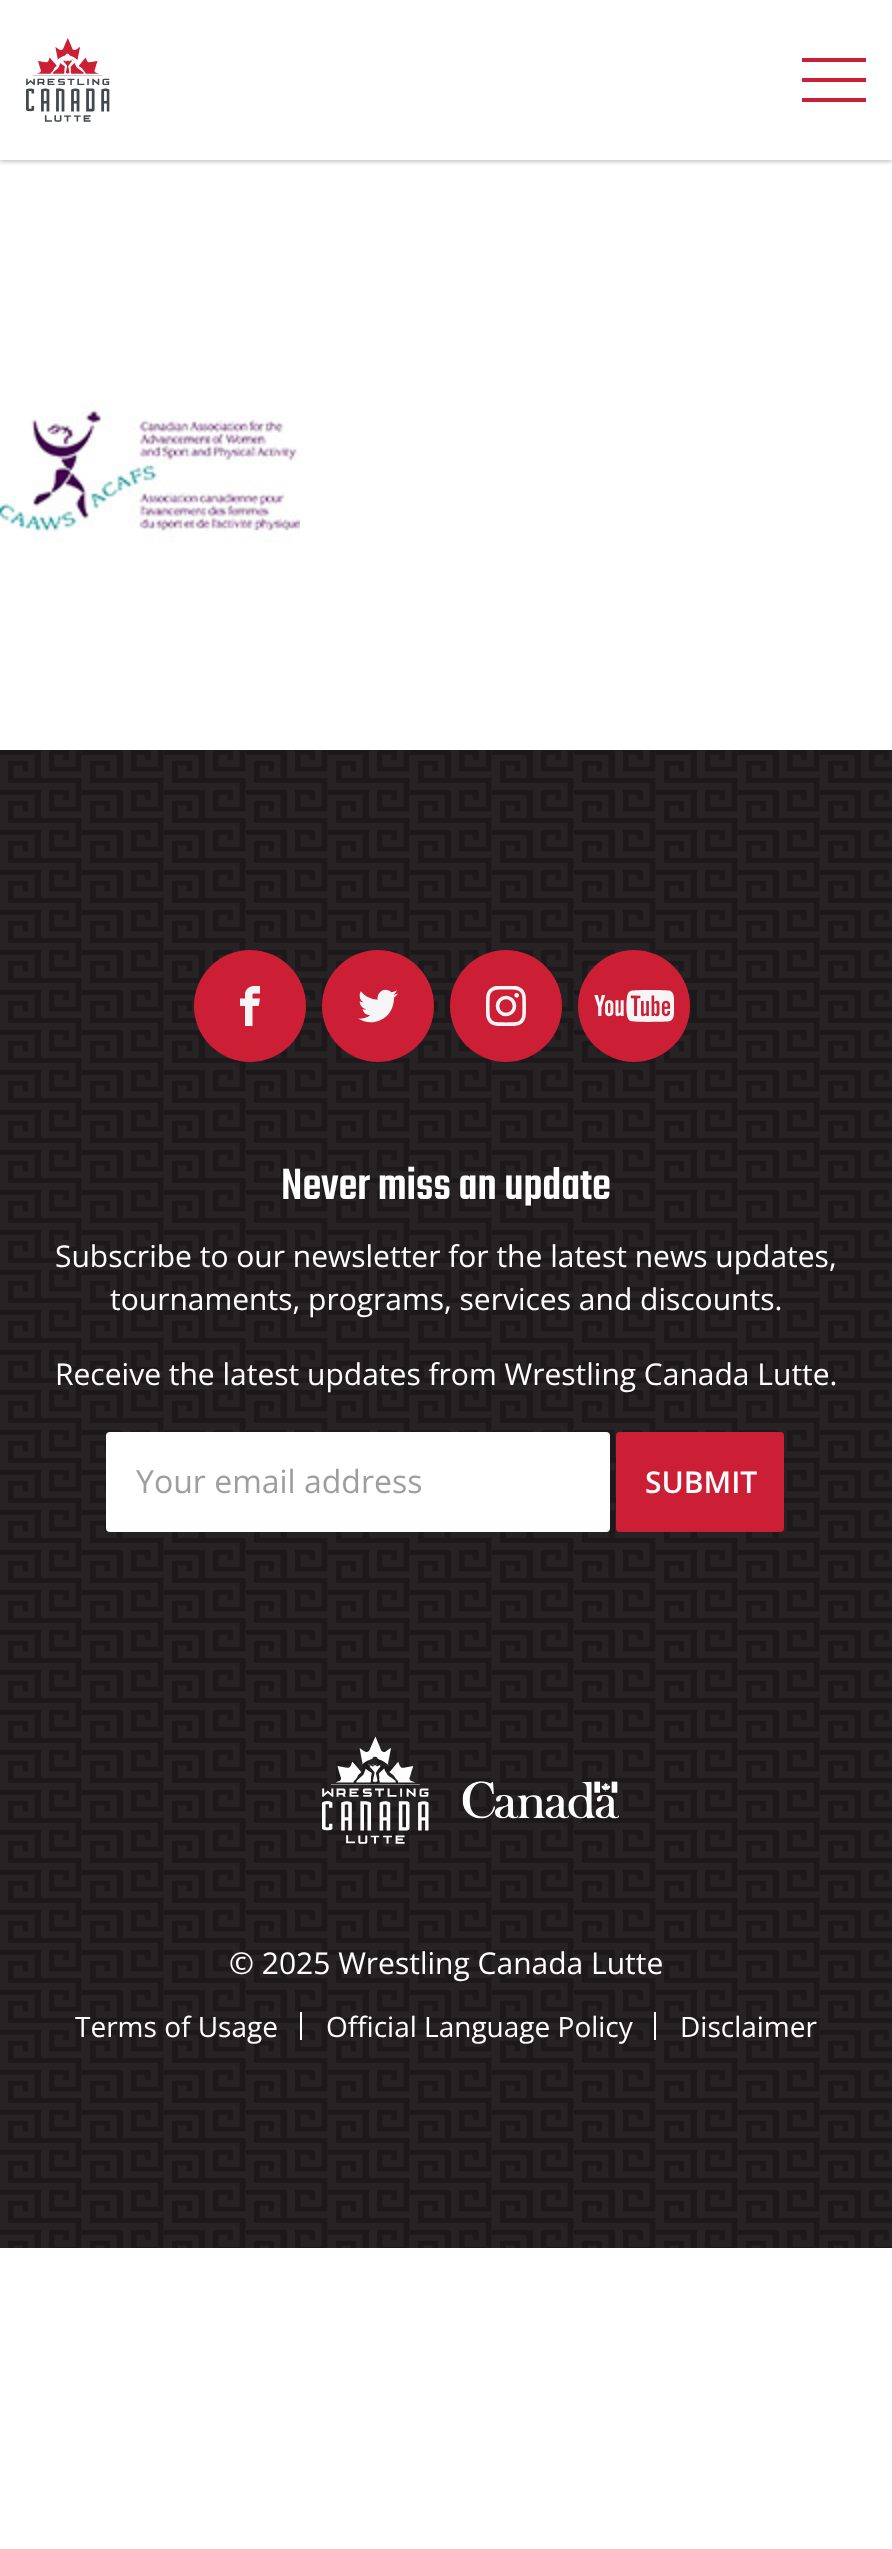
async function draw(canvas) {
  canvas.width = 892;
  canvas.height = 2549;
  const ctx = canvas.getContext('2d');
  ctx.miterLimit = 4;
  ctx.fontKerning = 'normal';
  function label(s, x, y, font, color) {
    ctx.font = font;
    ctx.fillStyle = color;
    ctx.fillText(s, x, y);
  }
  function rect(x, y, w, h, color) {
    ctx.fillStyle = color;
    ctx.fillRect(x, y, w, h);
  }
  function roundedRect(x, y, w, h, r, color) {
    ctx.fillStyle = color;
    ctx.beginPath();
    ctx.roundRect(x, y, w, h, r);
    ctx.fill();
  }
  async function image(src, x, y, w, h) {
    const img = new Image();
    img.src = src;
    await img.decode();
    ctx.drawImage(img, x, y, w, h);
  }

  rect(0, 0, 892, 2549, '#fff');
  ctx.save();
  ctx.beginPath();
  ctx.rect(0, 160, 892, 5);
  ctx.clip();
  ctx.fillStyle = '#00000038';
  ctx.filter = 'blur(2px)';
  ctx.beginPath();
  ctx.rect(0, 2, 892, 160);
  ctx.fill();
  ctx.filter = 'none';
  ctx.restore();
  await image('assets/img1.png', 26, 38, 84, 84);
  rect(802, 58, 64, 4, '#cc1f36');
  rect(802, 78, 64, 4, '#cc1f36');
  rect(802, 98, 64, 4, '#cc1f36');
  await image('assets/img2.png', 0, 400, 300, 143);
  await image('assets/img3.png', 0, 750, 892, 1498);
  ctx.beginPath();
  ctx.arc(250, 1006, 56, 0, 2 * Math.PI);
  ctx.fill();
  await image('assets/img4.png', 240, 986, 20, 40);
  ctx.beginPath();
  ctx.arc(378, 1006, 56, 0, 2 * Math.PI);
  ctx.fill();
  await image('assets/img5.png', 358, 989, 40, 34);
  ctx.beginPath();
  ctx.arc(506, 1006, 56, 0, 2 * Math.PI);
  ctx.fill();
  await image('assets/img6.png', 486, 986, 40, 40);
  ctx.beginPath();
  ctx.arc(634, 1006, 56, 0, 2 * Math.PI);
  ctx.fill();
  await image('assets/img7.png', 594, 990, 80, 32);
  label('Never miss an update', 281, 1199, '500 48px Teko', '#fff');
  label('Subscribe to our newsletter for the latest news updates,', 55, 1267, '30px Open Sans', '#fff');
  label('tournaments, programs, services and discounts.', 110, 1310, '30px Open Sans', '#fff');
  label('Receive the latest updates from Wrestling Canada Lutte.', 55, 1385, '30px Open Sans', '#fff');
  roundedRect(106, 1432, 504, 100, 4, '#fff');
  label('Your email address', 136, 1493, '32px Open Sans', '#9e9e9e');
  roundedRect(616, 1432, 168, 100, 4, '#cc1f36');
  label('SUBMIT', 645, 1493, '600 30px Open Sans', '#fff');
  await image('assets/img8.png', 322, 1736, 107, 108);
  await image('assets/img9.png', 462, 1781, 157, 38);
  label('© 2025 Wrestling Canada Lutte', 229, 1974, '30px Open Sans', '#fff');
  label('Terms of Usage', 75, 2037, '28px Open Sans', '#fff');
  rect(300, 2012, 2, 28, '#fff');
  label('Official Language Policy', 326, 2037, '28px Open Sans', '#fff');
  rect(654, 2012, 2, 28, '#fff');
  label('Disclaimer', 680, 2037, '28px Open Sans', '#fff');
}

draw(document.querySelector('canvas'));
